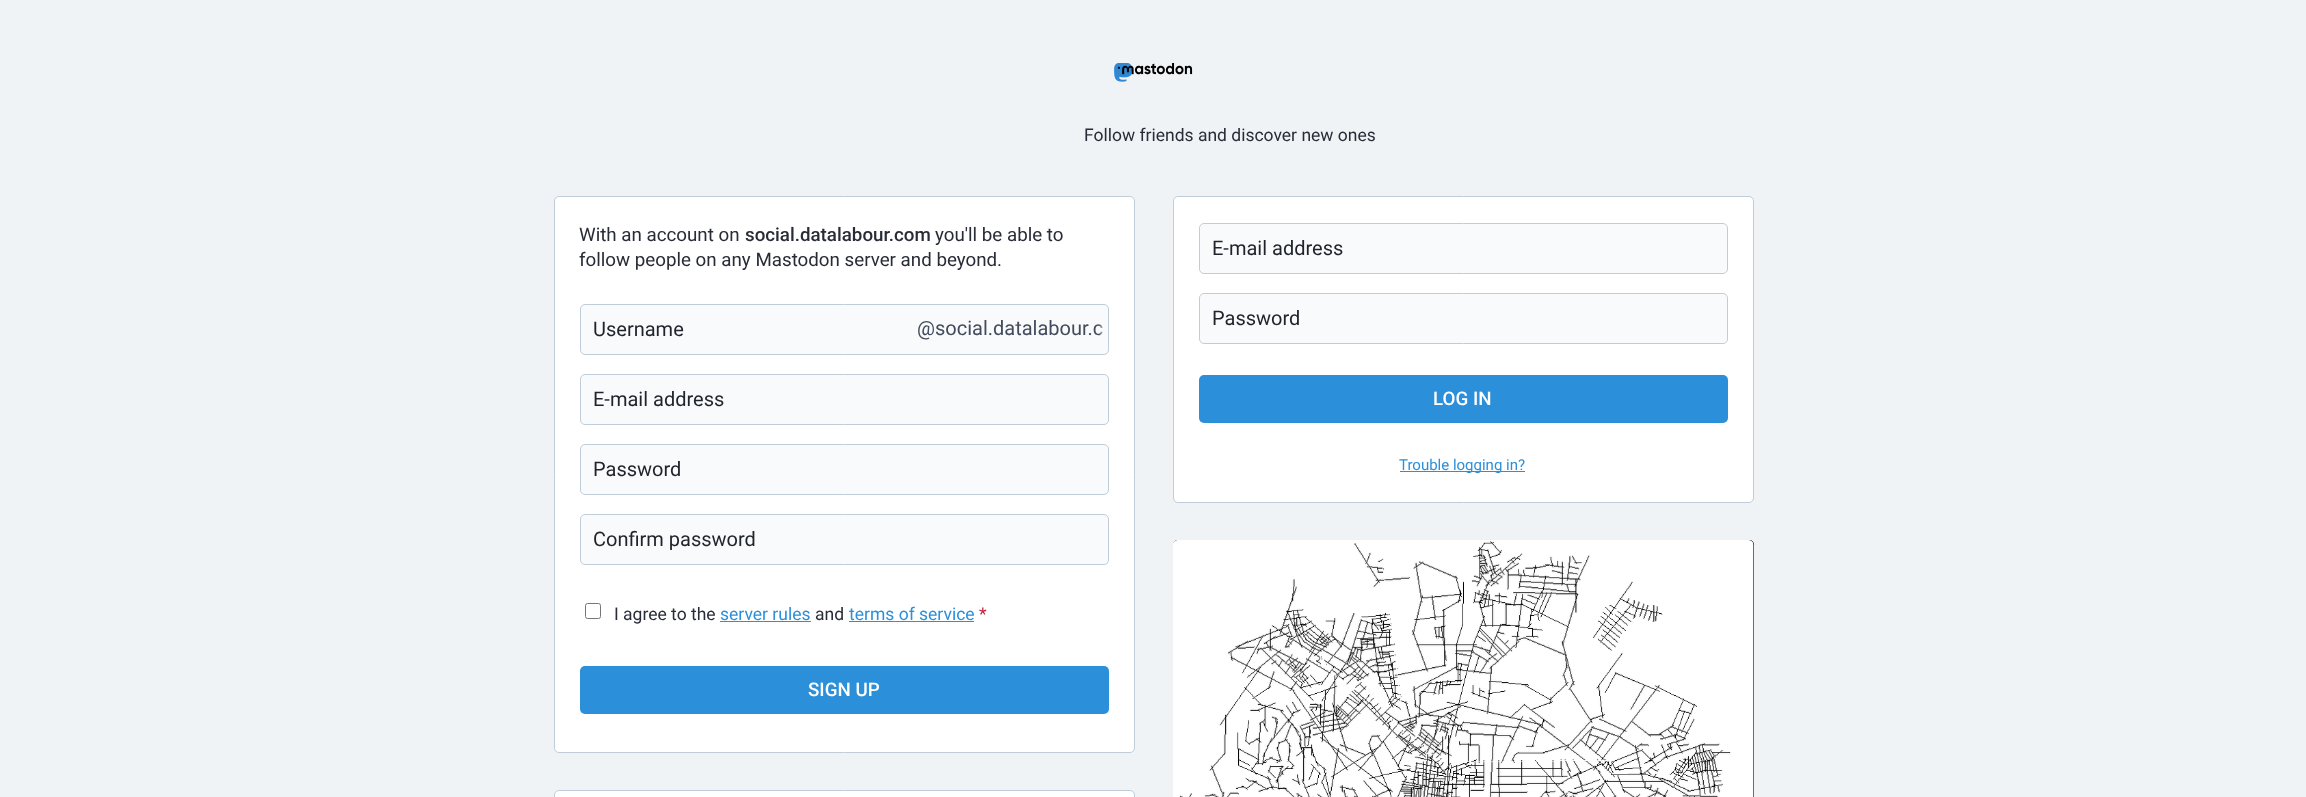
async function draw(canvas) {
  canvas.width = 2306;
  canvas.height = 797;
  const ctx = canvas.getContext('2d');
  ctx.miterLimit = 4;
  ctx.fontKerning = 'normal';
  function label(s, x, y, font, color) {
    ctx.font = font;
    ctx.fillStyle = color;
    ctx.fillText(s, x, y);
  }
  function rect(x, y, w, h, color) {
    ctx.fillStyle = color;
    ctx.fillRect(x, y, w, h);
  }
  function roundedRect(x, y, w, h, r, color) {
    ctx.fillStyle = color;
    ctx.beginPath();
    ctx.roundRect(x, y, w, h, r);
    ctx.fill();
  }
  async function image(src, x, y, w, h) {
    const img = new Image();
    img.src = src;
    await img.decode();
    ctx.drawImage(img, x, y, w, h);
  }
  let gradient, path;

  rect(0, 0, 2306, 797, '#eff3f5');
  await image('assets/img1.png', 1114, 63, 79, 19);
  label('Follow friends and discover new ones', 1084, 141, '17.5px Roboto', '#282c37');
  ctx.fillStyle = '#fff';
  ctx.beginPath();
  ctx.roundRect(554.5, 196.5, 580, 556, 4.5);
  ctx.fill();
  ctx.strokeStyle = '#c0cdd9';
  ctx.stroke();
  label('With an account on', 579, 241, '18.75px Roboto', '#282c37');
  label('social.datalabour.com', 745, 241, '500 18.75px Roboto', '#282c37');
  label('you\'ll be able to', 935, 241, '18.75px Roboto', '#282c37');
  label('follow people on any Mastodon server and beyond.', 579, 266, '18.75px Roboto', '#282c37');
  ctx.fillStyle = '#f9fafb';
  ctx.beginPath();
  ctx.roundRect(580.5, 304.5, 528, 50, 4.5);
  ctx.fill();
  ctx.stroke();
  label('Username', 593, 336, '20px Roboto', '#1f232b');
  label('@social.datalabour.c', 917, 335, '20px Roboto', '#444b5d');
  gradient = ctx.createLinearGradient(1099, 328, 1105, 328);
  gradient.addColorStop(0, '#f9fafb00');
  gradient.addColorStop(1, '#f9fafb');
  ctx.fillStyle = gradient;
  ctx.fillRect(1099, 324, 4, 11);
  ctx.fillStyle = '#f9fafb';
  ctx.beginPath();
  ctx.roundRect(580.5, 374.5, 528, 50, 4.5);
  ctx.fill();
  ctx.stroke();
  label('E-mail address', 593, 406, '20px Roboto', '#1f232b');
  ctx.fillStyle = '#f9fafb';
  ctx.beginPath();
  ctx.roundRect(580.5, 444.5, 528, 50, 4.5);
  ctx.fill();
  ctx.stroke();
  label('Password', 593, 476, '20px Roboto', '#1f232b');
  ctx.fillStyle = '#f9fafb';
  ctx.beginPath();
  ctx.roundRect(580.5, 514.5, 528, 50, 4.5);
  ctx.fill();
  ctx.stroke();
  label('Confirm password', 593, 546, '20px Roboto', '#1f232b');
  ctx.beginPath();
  ctx.roundRect(585.5, 603.5, 15, 15, 2);
  ctx.strokeStyle = '#767676';
  ctx.stroke();
  label('I agree to the', 614, 620, '17.5px Roboto', '#282c37');
  label('server rules', 720, 620, '17.5px Roboto', '#2b90d9');
  rect(720, 621, 91, 1, '#2b90d9');
  label('and', 815, 620, '17.5px Roboto', '#282c37');
  label('terms of service', 849, 620, '17.5px Roboto', '#2b90d9');
  rect(849, 621, 125, 1, '#2b90d9');
  label('*', 979, 620, '17.5px Roboto', '#c1203b');
  roundedRect(580, 666, 529, 48, 5, '#2b90d9');
  label('SIGN UP', 808, 696, '500 18.75px Roboto', '#fff');
  ctx.beginPath();
  ctx.roundRect(554.5, 790.5, 580, 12, 4.5);
  ctx.fill();
  ctx.strokeStyle = '#c0cdd9';
  ctx.stroke();
  ctx.beginPath();
  ctx.roundRect(1173.5, 196.5, 580, 306, 4.5);
  ctx.fill();
  ctx.stroke();
  ctx.fillStyle = '#f9fafb';
  ctx.beginPath();
  ctx.roundRect(1199.5, 223.5, 528, 50, 4.5);
  ctx.fill();
  ctx.stroke();
  label('E-mail address', 1212, 255, '20px Roboto', '#1f232b');
  ctx.fillStyle = '#f9fafb';
  ctx.beginPath();
  ctx.roundRect(1199.5, 293.5, 528, 50, 4.5);
  ctx.fill();
  ctx.stroke();
  label('Password', 1212, 325, '20px Roboto', '#1f232b');
  roundedRect(1199, 375, 529, 48, 5, '#2b90d9');
  label('LOG IN', 1433, 405, '500 18.75px Roboto', '#fff');
  rect(1400, 471, 125, 1, '#2b90d9');
  label('Trouble logging in?', 1399, 470, '15px Roboto', '#2b90d9');
  ctx.fillStyle = '#000';
  path = new Path2D('M1178 540H1749C1752 540 1754 542 1754 545V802H1173V545C1173 542 1175 540 1178 540Z');
  ctx.fill(path);
  await image('assets/img2.png', 1173, 540, 581, 257);
}

draw(document.querySelector('canvas'));
